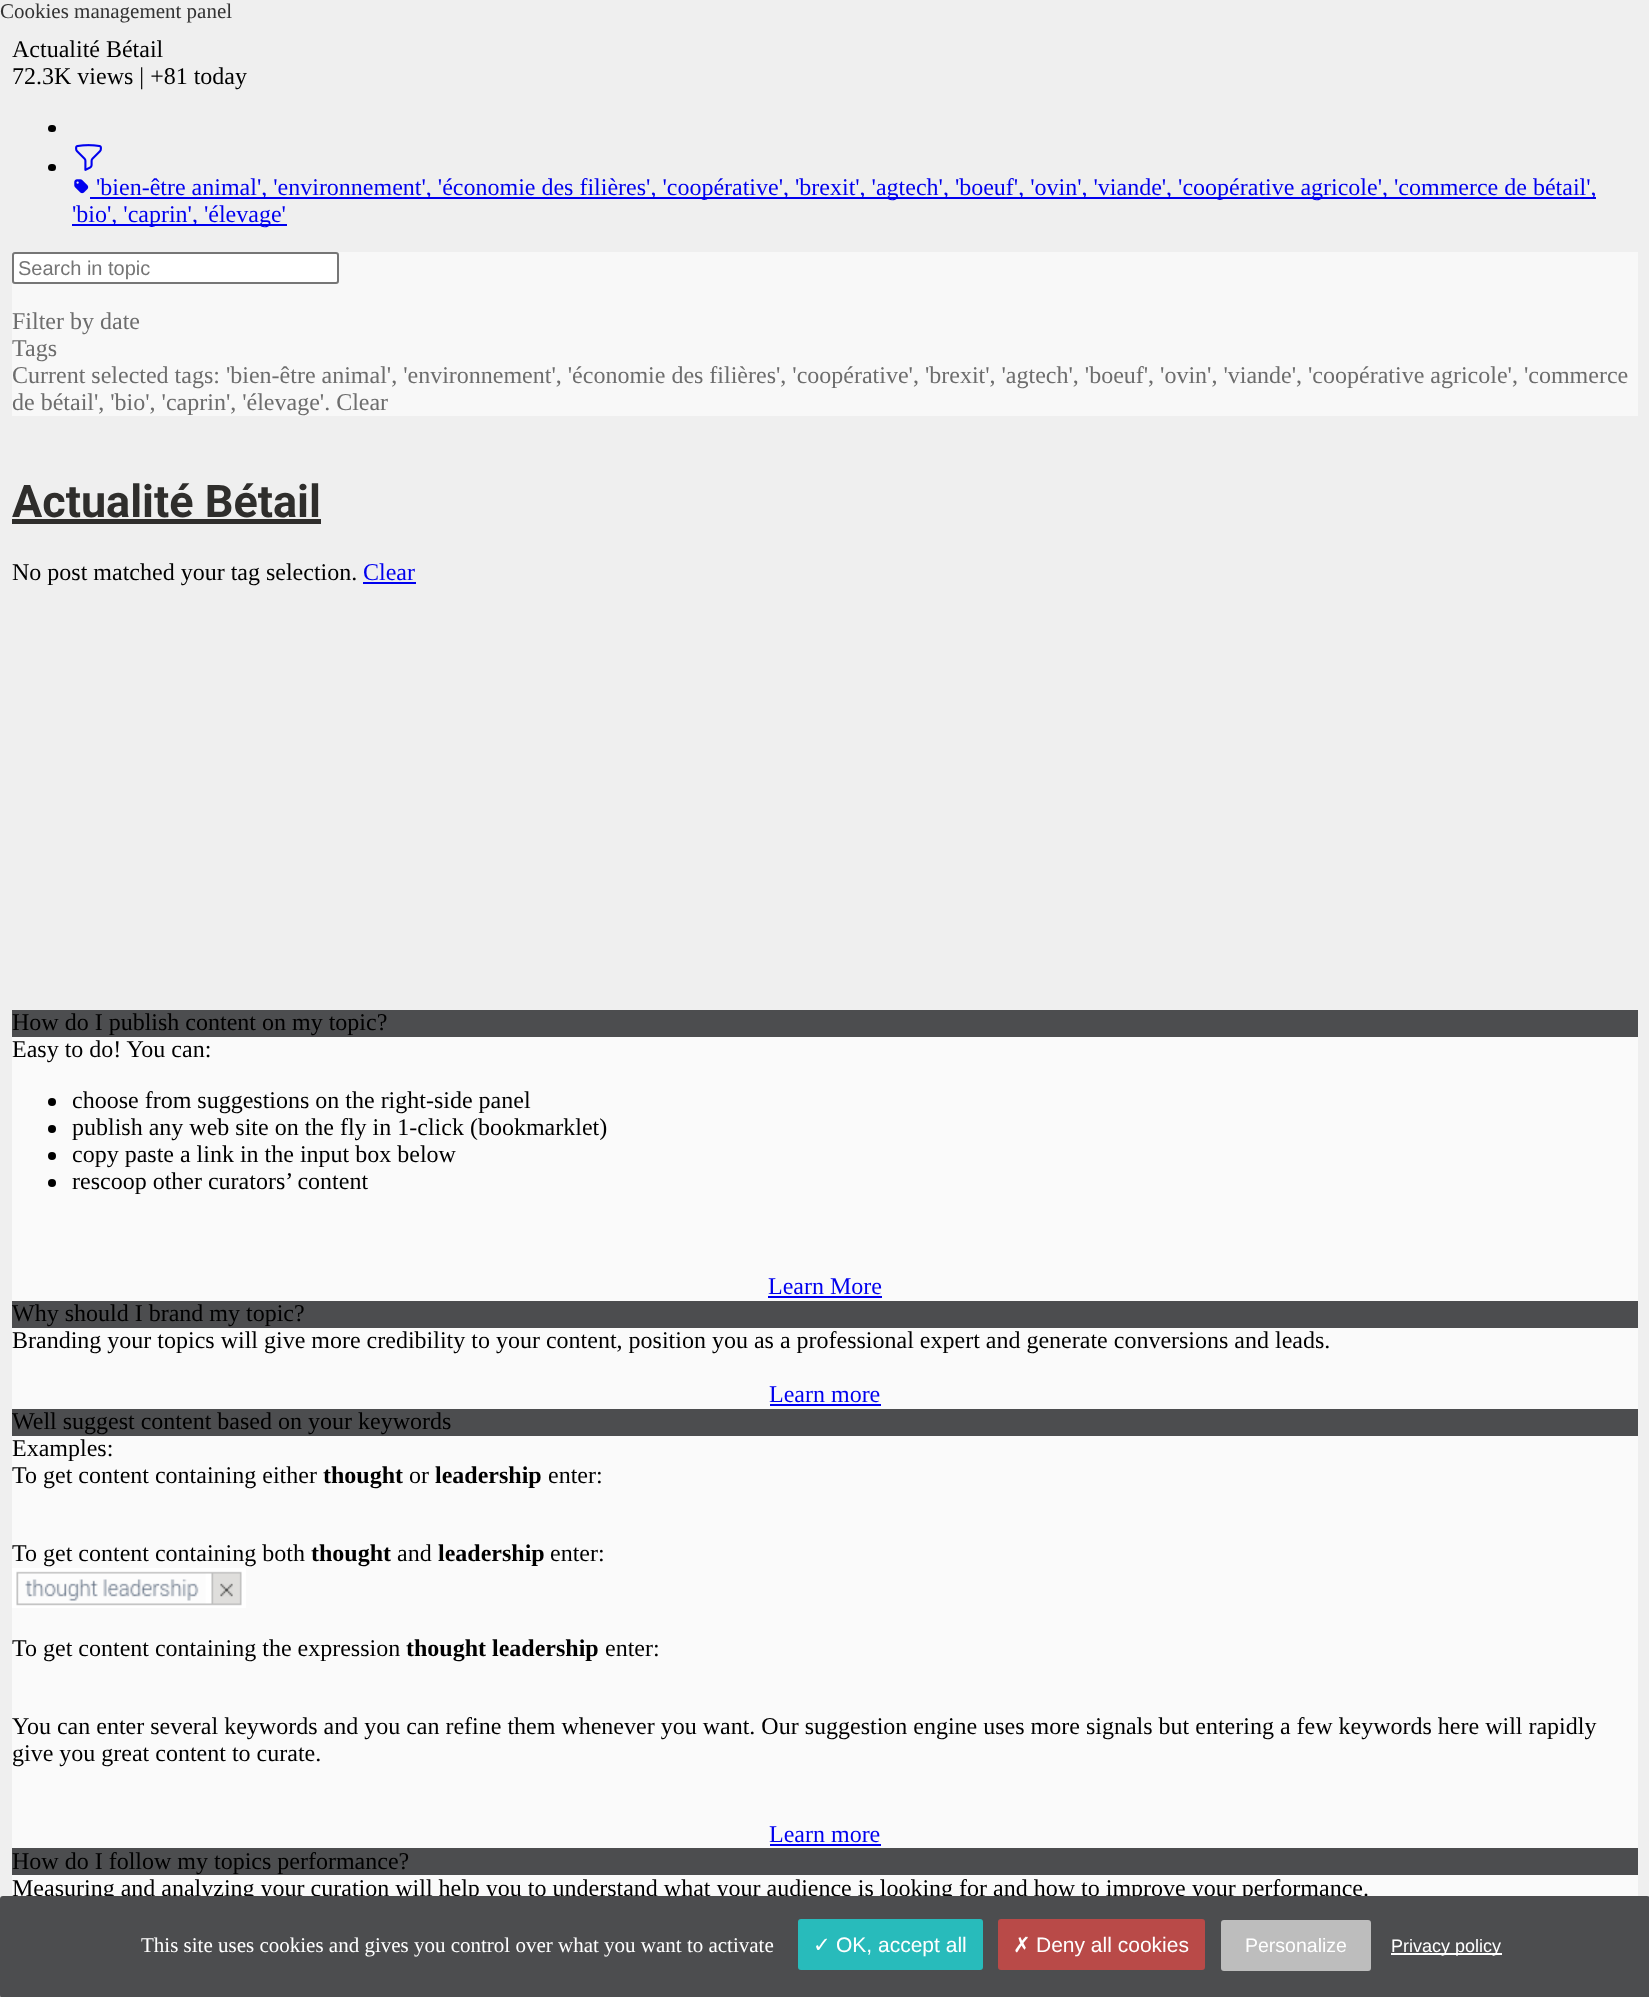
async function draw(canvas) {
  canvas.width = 1649;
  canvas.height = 1997;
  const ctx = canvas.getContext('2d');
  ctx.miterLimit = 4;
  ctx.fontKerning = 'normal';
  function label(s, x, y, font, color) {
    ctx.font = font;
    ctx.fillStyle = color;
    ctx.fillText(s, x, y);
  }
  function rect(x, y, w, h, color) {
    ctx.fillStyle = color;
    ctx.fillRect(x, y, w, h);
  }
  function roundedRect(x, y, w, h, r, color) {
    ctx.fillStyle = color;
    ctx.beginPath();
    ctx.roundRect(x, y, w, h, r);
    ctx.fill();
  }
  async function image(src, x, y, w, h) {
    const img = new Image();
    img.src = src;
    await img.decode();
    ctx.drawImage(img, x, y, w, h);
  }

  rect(0, 0, 1649, 1997, '#efefef');
  label('Cookies management panel', 0, 18, '21px Liberation Serif', '#333');
  rect(12, 1875, 1626, 21, '#fafafa');
  label('Measuring and analyzing your curation will help you to understand what your audience is looking for and how to improve your performance.', 12, 1896, '24px Liberation Serif', '#000');
  roundedRect(0, 1896, 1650, 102, 3, '#4c4d4f');
  label('This site uses cookies and gives you control over what you want to activate', 141, 1952, '21px Liberation Serif', '#fff');
  roundedRect(798, 1919, 185, 51, 3, '#28bbbb');
  label('✓', 813, 1952, '21px DejaVu Sans', '#fff');
  label('OK, accept all', 836, 1952, '21px Liberation Sans', '#fff');
  roundedRect(998, 1919, 207, 51, 3, '#b94a48');
  label('✗', 1013, 1952, '21px DejaVu Sans', '#fff');
  label('Deny all cookies', 1036, 1952, '21px Liberation Sans', '#fff');
  roundedRect(1221, 1920, 150, 51, 3, '#bdbdbd');
  label('Personalize', 1245, 1952, '19.5px Liberation Sans', '#fff');
  rect(1391, 1953, 111, 2, '#fff');
  label('Privacy policy', 1391, 1952, '18px Liberation Sans', '#fff');
  label('Actualité Bétail', 12, 57, '24px Liberation Serif', '#000');
  label('72.3K views | +81 today', 12, 84, '24px Liberation Serif', '#000');
  roundedRect(48, 125, 8, 7, 3.5, '#000');
  roundedRect(48, 164, 8, 7, 3.5, '#000');
  await image('assets/img1.png', 75, 144, 27, 27);
  await image('assets/img2.png', 74, 179, 15, 15);
  rect(90, 197, 1506, 2, '#00e');
  label('\'bien-être animal\', \'environnement\', \'économie des filières\', \'coopérative\', \'brexit\', \'agtech\', \'boeuf\', \'ovin\', \'viande\', \'coopérative agricole\', \'commerce de bétail\',', 96, 195, '24px Liberation Serif', '#00e');
  rect(72, 224, 215, 2, '#00e');
  label('\'bio\', \'caprin\', \'élevage\'', 72, 222, '24px Liberation Serif', '#00e');
  rect(12, 252, 1626, 164, '#f8f8f8');
  ctx.fillStyle = '#fff';
  ctx.beginPath();
  ctx.roundRect(13, 253, 325, 30, 2);
  ctx.fill();
  ctx.strokeStyle = '#767676';
  ctx.lineWidth = 2;
  ctx.stroke();
  label('Search in topic', 18, 275, '20px Liberation Sans', '#757575');
  label('Filter by date', 12, 329, '24px Liberation Serif', '#6d6d6d');
  label('Tags', 12, 356, '24px Liberation Serif', '#6d6d6d');
  label('Current selected tags: \'bien-être animal\', \'environnement\', \'économie des filières\', \'coopérative\', \'brexit\', \'agtech\', \'boeuf\', \'ovin\', \'viande\', \'coopérative agricole\', \'commerce', 12, 383, '24px Liberation Serif', '#6d6d6d');
  label('de bétail\', \'bio\', \'caprin\', \'élevage\'. Clear', 12, 410, '24px Liberation Serif', '#6d6d6d');
  label('Actualité Bétail', 12, 517, 'bold 45px Roboto', '#2f2e2c');
  rect(12, 519, 309, 5, '#2f2e2c');
  label('No post matched your tag selection.', 12, 580, '24px Liberation Serif', '#000');
  label('Clear', 363, 580, '24px Liberation Serif', '#00e');
  rect(363, 582, 53, 2, '#00e');
  rect(12, 1010, 1626, 27, '#4c4d4f');
  label('How do I publish content on my topic?', 12, 1030, '24px Liberation Serif', '#000');
  rect(12, 1037, 1626, 264, '#fafafa');
  label('Easy to do! You can:', 12, 1057, '24px Liberation Serif', '#000');
  ctx.beginPath();
  ctx.arc(52, 1102, 4, 0, 2 * Math.PI);
  ctx.fill();
  label('choose from suggestions on the right-side panel', 72, 1108, '24px Liberation Serif', '#000');
  ctx.beginPath();
  ctx.arc(52, 1129, 4, 0, 2 * Math.PI);
  ctx.fill();
  label('publish any web site on the fly in 1-click (bookmarklet)', 72, 1135, '24px Liberation Serif', '#000');
  ctx.beginPath();
  ctx.arc(52, 1156, 4, 0, 2 * Math.PI);
  ctx.fill();
  label('copy paste a link in the input box below', 72, 1162, '24px Liberation Serif', '#000');
  ctx.beginPath();
  ctx.arc(52, 1183, 4, 0, 2 * Math.PI);
  ctx.fill();
  label('rescoop other curators’ content', 72, 1189, '24px Liberation Serif', '#000');
  label('Learn More', 768, 1294, '24px Liberation Serif', '#00e');
  rect(768, 1296, 114, 2, '#00e');
  rect(12, 1301, 1626, 27, '#4c4d4f');
  label('Why should I brand my topic?', 12, 1321, '24px Liberation Serif', '#000');
  rect(12, 1328, 1626, 81, '#fafafa');
  label('Branding your topics will give more credibility to your content, position you as a professional expert and generate conversions and leads.', 12, 1348, '24px Liberation Serif', '#000');
  label('Learn more', 769, 1402, '24px Liberation Serif', '#00e');
  rect(770, 1404, 111, 2, '#00e');
  rect(12, 1409, 1626, 27, '#4c4d4f');
  label('Well suggest content based on your keywords', 12, 1429, '24px Liberation Serif', '#000');
  rect(12, 1436, 1626, 412, '#fafafa');
  label('Examples:', 12, 1456, '24px Liberation Serif', '#000');
  label('To get content containing either', 12, 1483, '24px Liberation Serif', '#000');
  label('thought', 323, 1483, 'bold 24px Liberation Serif', '#000');
  label('or', 409, 1483, '24px Liberation Serif', '#000');
  label('leadership', 435, 1483, 'bold 24px Liberation Serif', '#000');
  label('enter:', 548, 1483, '24px Liberation Serif', '#000');
  label('To get content containing both', 12, 1561, '24px Liberation Serif', '#000');
  label('thought', 311, 1561, 'bold 24px Liberation Serif', '#000');
  label('and', 397, 1561, '24px Liberation Serif', '#000');
  label('leadership', 438, 1561, 'bold 24px Liberation Serif', '#000');
  label('enter:', 550, 1561, '24px Liberation Serif', '#000');
  await image('assets/img3.png', 12, 1568, 234, 40);
  label('To get content containing the expression', 12, 1656, '24px Liberation Serif', '#000');
  label('thought leadership', 406, 1656, 'bold 24px Liberation Serif', '#000');
  label('enter:', 605, 1656, '24px Liberation Serif', '#000');
  label('You can enter several keywords and you can refine them whenever you want. Our suggestion engine uses more signals but entering a few keywords here will rapidly', 12, 1734, '24px Liberation Serif', '#000');
  label('give you great content to curate.', 12, 1761, '24px Liberation Serif', '#000');
  label('Learn more', 769, 1842, '24px Liberation Serif', '#00e');
  rect(770, 1844, 111, 2, '#00e');
  rect(12, 1848, 1626, 27, '#4c4d4f');
  label('How do I follow my topics performance?', 12, 1869, '24px Liberation Serif', '#000');
}

draw(document.querySelector('canvas'));
